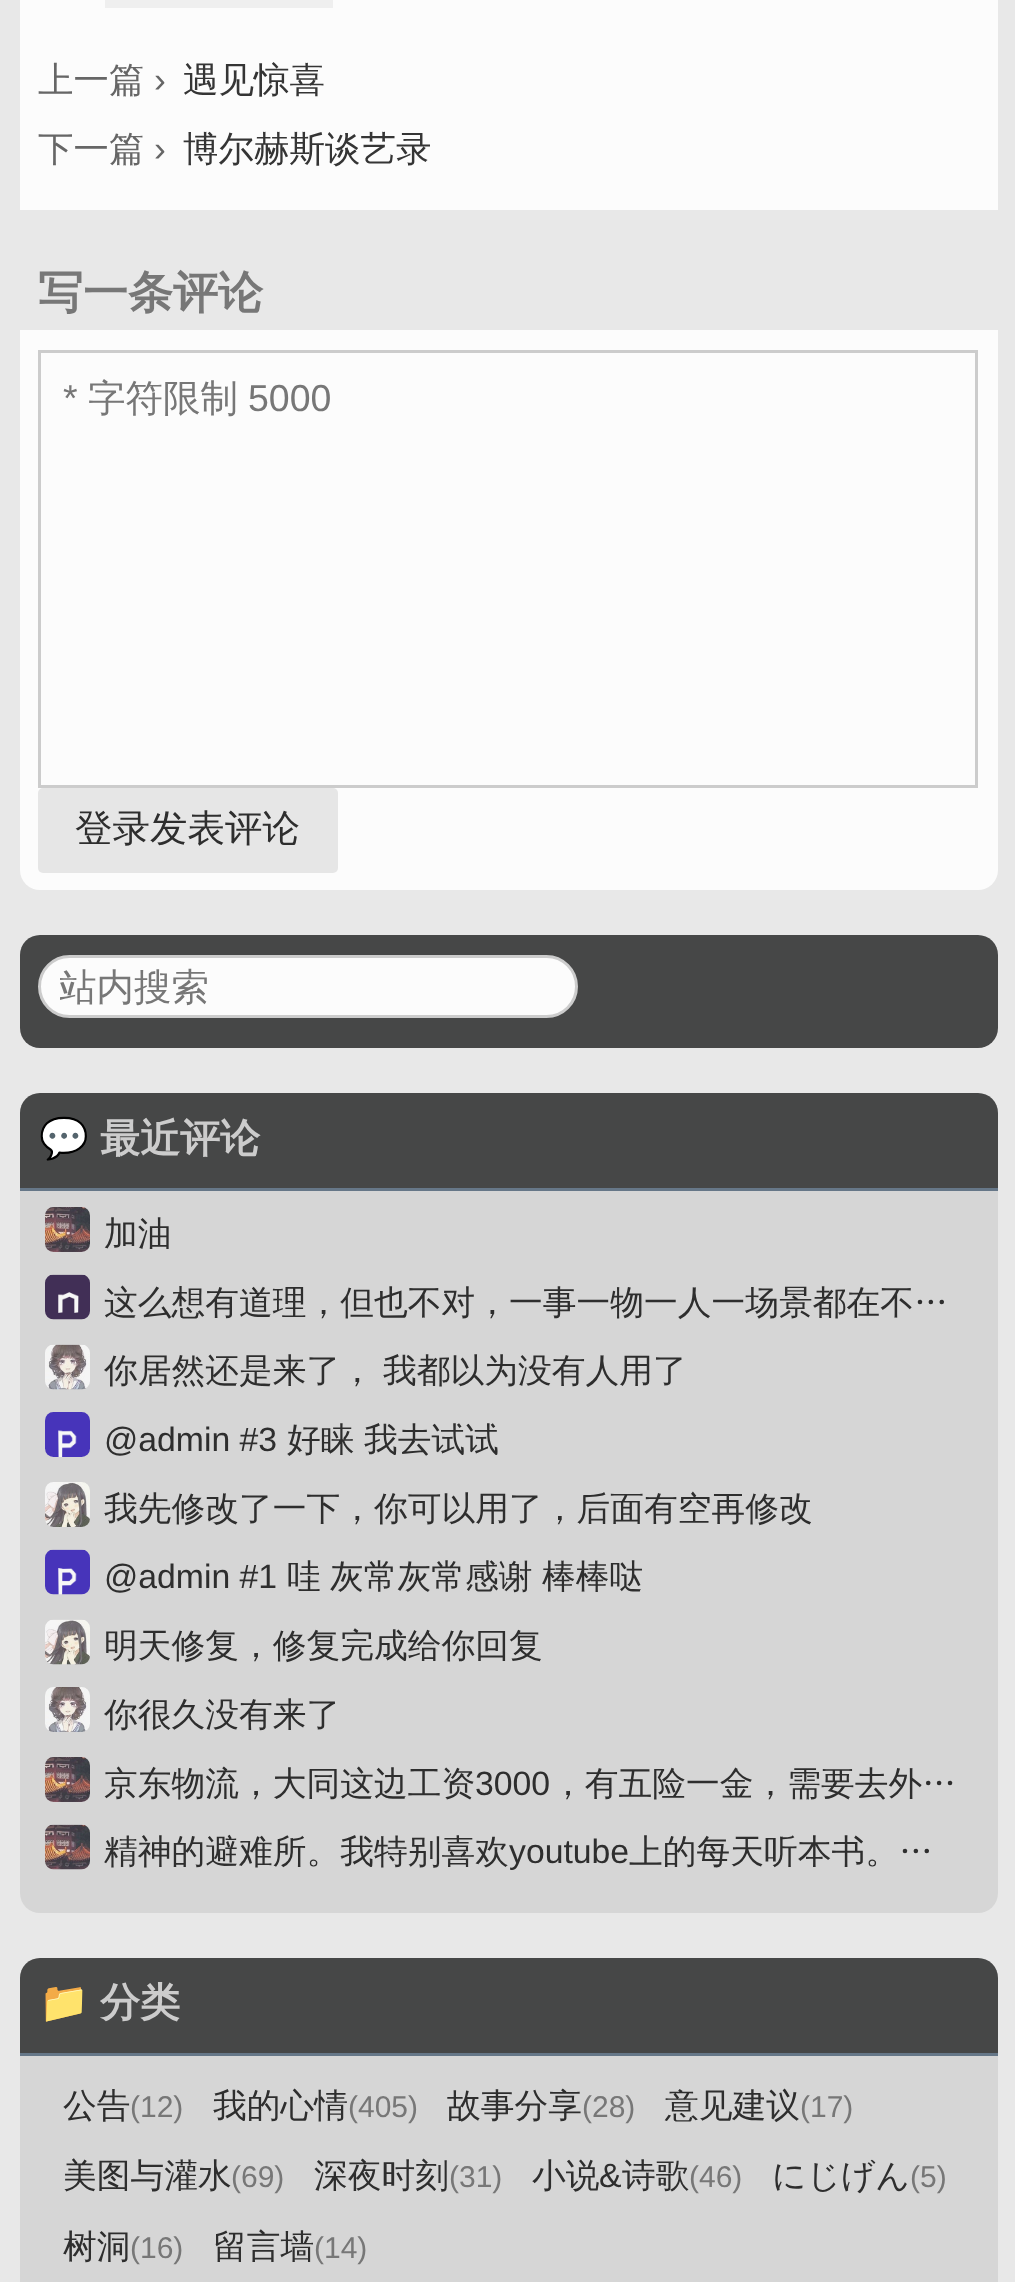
async function draw(canvas) {
  canvas.width = 1015;
  canvas.height = 2282;
  const ctx = canvas.getContext('2d');
  ctx.miterLimit = 4;
  ctx.fontKerning = 'normal';
  function label(s, x, y, font, color) {
    ctx.font = font;
    ctx.fillStyle = color;
    ctx.fillText(s, x, y);
  }
  function rect(x, y, w, h, color) {
    ctx.fillStyle = color;
    ctx.fillRect(x, y, w, h);
  }
  function roundedRect(x, y, w, h, r, color) {
    ctx.fillStyle = color;
    ctx.beginPath();
    ctx.roundRect(x, y, w, h, r);
    ctx.fill();
  }
  async function image(src, x, y, w, h) {
    const img = new Image();
    img.src = src;
    await img.decode();
    ctx.drawImage(img, x, y, w, h);
  }

  rect(0, 0, 1015, 2282, '#e8e8e8');
  roundedRect(20, -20, 978, 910, 20, '#fcfcfc');
  rect(105, 0, 228, 8, '#efefef');
  label('上一篇', 38, 92, '500 35.5px WenQuanYi Zen Hei', '#666');
  label('›', 154, 92, '35.5px Liberation Sans', '#666');
  label('遇见惊喜', 183, 92, '500 35.5px WenQuanYi Zen Hei', '#353535');
  label('下一篇', 38, 161, '500 35.5px WenQuanYi Zen Hei', '#666');
  label('›', 154, 161, '35.5px Liberation Sans', '#666');
  label('博尔赫斯谈艺录', 183, 161, '500 35.5px WenQuanYi Zen Hei', '#353535');
  rect(20, 210, 978, 120, '#e8e8e8');
  label('写一条评论', 38, 308, 'bold 45px WenQuanYi Zen Hei', '#777');
  ctx.strokeStyle = '#ccc';
  ctx.lineWidth = 3;
  ctx.strokeRect(39.5, 351.5, 937, 435);
  label('*', 63, 411, '37.5px Liberation Sans', '#777');
  label('字符限制', 88, 411, '500 37.5px WenQuanYi Zen Hei', '#777');
  label('5000', 248, 411, '37.5px Liberation Sans', '#777');
  roundedRect(38, 788, 300, 85, 5, '#e6e6e6');
  label('登录发表评论', 75, 841, '500 37.5px WenQuanYi Zen Hei', '#2e2e2e');
  roundedRect(20, 935, 978, 113, 20, '#464747');
  ctx.fillStyle = '#fcfcfc';
  ctx.beginPath();
  ctx.roundRect(39.5, 956.5, 537, 60, 30);
  ctx.fill();
  ctx.stroke();
  ctx.save();
  ctx.beginPath();
  ctx.rect(60, 965, 498, 48);
  ctx.clip();
  label('站内搜索', 59, 1000, '500 37.5px WenQuanYi Zen Hei', '#777');
  ctx.restore();
  roundedRect(20, 1093, 978, 820, 20, '#d6d6d6');
  ctx.fillStyle = '#464747';
  ctx.beginPath();
  ctx.roundRect(20, 1093, 978, 97, [20, 20, 0, 0]);
  ctx.fill();
  rect(20, 1188, 978, 3, '#678');
  label('💬', 39, 1152, 'bold 40px Noto Color Emoji', '#ccc');
  label('最近评论', 100, 1152, 'bold 40px WenQuanYi Zen Hei', '#ccc');
  await image('assets/img1.png', 45, 1207, 45, 45);
  label('加油', 104, 1245, '500 33.75px WenQuanYi Zen Hei', '#2e2e2e');
  await image('assets/img2.png', 45, 1274, 45, 46);
  label('这么想有道理，但也不对，一事一物一人一场景都在不…', 104, 1314, '500 33.75px WenQuanYi Zen Hei', '#2e2e2e');
  await image('assets/img3.png', 45, 1344, 45, 46);
  ctx.wordSpacing = '-1px';
  label('你居然还是来了， 我都以为没有人用了', 104, 1382, '500 33.75px WenQuanYi Zen Hei', '#2e2e2e');
  await image('assets/img4.png', 45, 1412, 45, 45);
  ctx.wordSpacing = '0px';
  label('@admin #3', 104, 1451, '33.75px Liberation Sans', '#2e2e2e');
  label('好睐', 287, 1451, '500 33.75px WenQuanYi Zen Hei', '#2e2e2e');
  label('我去试试', 364, 1451, '500 33.75px WenQuanYi Zen Hei', '#2e2e2e');
  await image('assets/img5.png', 45, 1482, 45, 45);
  label('我先修改了一下，你可以用了，后面有空再修改', 104, 1520, '500 33.75px WenQuanYi Zen Hei', '#2e2e2e');
  await image('assets/img6.png', 45, 1549, 45, 46);
  label('@admin #1', 104, 1588, '33.75px Liberation Sans', '#2e2e2e');
  label('哇', 287, 1588, '500 33.75px WenQuanYi Zen Hei', '#2e2e2e');
  label('灰常灰常感谢', 330, 1588, '500 33.75px WenQuanYi Zen Hei', '#2e2e2e');
  label('棒棒哒', 542, 1588, '500 33.75px WenQuanYi Zen Hei', '#2e2e2e');
  await image('assets/img7.png', 45, 1619, 45, 46);
  label('明天修复，修复完成给你回复', 104, 1657, '500 33.75px WenQuanYi Zen Hei', '#2e2e2e');
  await image('assets/img8.png', 45, 1687, 45, 45);
  label('你很久没有来了', 104, 1726, '500 33.75px WenQuanYi Zen Hei', '#2e2e2e');
  await image('assets/img1.png', 45, 1757, 45, 45);
  label('京东物流，大同这边工资', 104, 1795, '500 33.75px WenQuanYi Zen Hei', '#2e2e2e');
  label('3000', 475, 1795, '33.75px Liberation Sans', '#2e2e2e');
  label('，有五险一金，需要去外…', 551, 1795, '500 33.75px WenQuanYi Zen Hei', '#2e2e2e');
  await image('assets/img9.png', 45, 1824, 45, 46);
  label('精神的避难所。我特别喜欢', 104, 1863, '500 33.75px WenQuanYi Zen Hei', '#2e2e2e');
  label('youtube', 509, 1863, '33.75px Liberation Sans', '#2e2e2e');
  label('上的每天听本书。…', 629, 1863, '500 33.75px WenQuanYi Zen Hei', '#2e2e2e');
  roundedRect(20, 1958, 978, 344, 20, '#d6d6d6');
  ctx.fillStyle = '#464747';
  ctx.beginPath();
  ctx.roundRect(20, 1958, 978, 97, [20, 20, 0, 0]);
  ctx.fill();
  rect(20, 2053, 978, 3, '#678');
  label('📁', 39, 2016, 'bold 40px Noto Color Emoji', '#ccc');
  label('分类', 100, 2016, 'bold 40px WenQuanYi Zen Hei', '#ccc');
  label('公告', 63, 2117, '500 33.75px WenQuanYi Zen Hei', '#2e2e2e');
  label('(12)', 130, 2117, '30px Liberation Sans', '#777');
  label('我的心情', 213, 2117, '500 33.75px WenQuanYi Zen Hei', '#2e2e2e');
  label('(405)', 348, 2117, '30px Liberation Sans', '#777');
  label('故事分享', 447, 2117, '500 33.75px WenQuanYi Zen Hei', '#2e2e2e');
  label('(28)', 582, 2117, '30px Liberation Sans', '#777');
  label('意见建议', 665, 2117, '500 33.75px WenQuanYi Zen Hei', '#2e2e2e');
  label('(17)', 800, 2117, '30px Liberation Sans', '#777');
  label('美图与灌水', 63, 2187, '500 33.75px WenQuanYi Zen Hei', '#2e2e2e');
  label('(69)', 231, 2187, '30px Liberation Sans', '#777');
  label('深夜时刻', 314, 2187, '500 33.75px WenQuanYi Zen Hei', '#2e2e2e');
  label('(31)', 449, 2187, '30px Liberation Sans', '#777');
  label('小说', 532, 2187, '500 33.75px WenQuanYi Zen Hei', '#2e2e2e');
  label('&', 599, 2187, '33.75px Liberation Sans', '#2e2e2e');
  label('诗歌', 622, 2187, '500 33.75px WenQuanYi Zen Hei', '#2e2e2e');
  label('(46)', 689, 2187, '30px Liberation Sans', '#777');
  label('にじげん', 772, 2187, '500 33.75px WenQuanYi Zen Hei', '#2e2e2e');
  label('(5)', 910, 2187, '30px Liberation Sans', '#777');
  label('树洞', 63, 2258, '500 33.75px WenQuanYi Zen Hei', '#2e2e2e');
  label('(16)', 130, 2258, '30px Liberation Sans', '#777');
  label('留言墙', 213, 2258, '500 33.75px WenQuanYi Zen Hei', '#2e2e2e');
  label('(14)', 314, 2258, '30px Liberation Sans', '#777');
}

draw(document.querySelector('canvas'));
